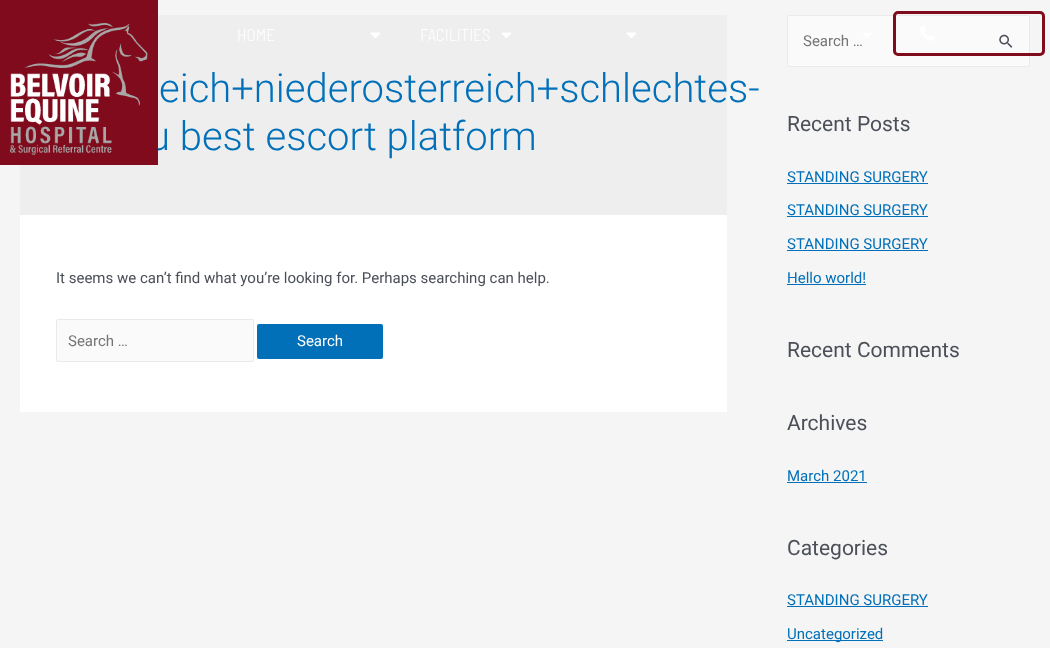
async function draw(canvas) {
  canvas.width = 1050;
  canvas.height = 648;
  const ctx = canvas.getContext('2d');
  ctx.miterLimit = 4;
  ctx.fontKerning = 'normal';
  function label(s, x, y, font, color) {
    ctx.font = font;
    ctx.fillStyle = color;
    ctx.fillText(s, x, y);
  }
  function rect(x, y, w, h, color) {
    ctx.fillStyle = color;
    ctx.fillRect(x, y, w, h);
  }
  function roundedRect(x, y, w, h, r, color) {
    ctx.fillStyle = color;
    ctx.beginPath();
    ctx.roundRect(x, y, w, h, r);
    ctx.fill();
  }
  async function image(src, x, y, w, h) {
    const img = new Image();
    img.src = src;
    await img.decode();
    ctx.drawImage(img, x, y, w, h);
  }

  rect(0, 0, 1050, 648, '#f5f5f5');
  rect(20, 15, 707, 200, '#eee');
  label('u best escort platform', 148, 150, '300 40px Roboto', '#0170b9');
  rect(0, 0, 158, 165, '#7f0b1c');
  await image('assets/img1.png', 10, 23, 138, 132);
  label('HOME', 237, 41, '300 17px Barlow Semi Condensed', '#fff');
  await image('assets/img2.png', 370, 32, 10, 6);
  label('FACILITIES', 420, 41, '300 17px Barlow Semi Condensed', '#fff');
  await image('assets/img2.png', 501, 32, 10, 6);
  await image('assets/img2.png', 626, 32, 10, 6);
  ctx.fillStyle = '#fafafa';
  ctx.beginPath();
  ctx.roundRect(787.5, 15.5, 242, 51, 1.5);
  ctx.fill();
  ctx.strokeStyle = '#eaeaea';
  ctx.stroke();
  await image('assets/img3.png', 863, 33, 9, 5);
  await image('assets/img5.png', 999, 34, 14, 14);
  ctx.beginPath();
  ctx.roundRect(894.5, 12.5, 149, 42, 3.5);
  ctx.strokeStyle = '#7f0b1c';
  ctx.lineWidth = 3;
  ctx.stroke();
  await image('assets/img4.png', 920, 26, 15, 15);
  label('eich+niederosterreich+schlechtes-', 159, 102, '300 40px Roboto', '#0170b9');
  rect(20, 215, 707, 197, '#fff');
  label('It seems we can’t find what you’re looking for. Perhaps searching can help.', 56, 283, '15px Roboto', '#4b4f58');
  ctx.fillStyle = '#fafafa';
  ctx.beginPath();
  ctx.roundRect(56.5, 319.5, 197, 42, 1.5);
  ctx.fill();
  ctx.strokeStyle = '#eaeaea';
  ctx.lineWidth = 1;
  ctx.stroke();
  label('Search …', 68, 346, '15px Roboto', '#757575');
  roundedRect(257, 324, 126, 35, 2, '#0170b9');
  label('Search', 297, 346, '15px Roboto', '#fff');
  label('Search …', 803, 46, '15px Roboto', '#757575');
  label('Recent Posts', 787, 131, '21px Roboto', '#4b4f58');
  label('STANDING SURGERY', 787, 182, '15px Roboto', '#0170b9');
  rect(787, 183, 141, 1, '#0170b9');
  label('STANDING SURGERY', 787, 215, '15px Roboto', '#0170b9');
  rect(787, 216, 141, 1, '#0170b9');
  label('STANDING SURGERY', 787, 249, '15px Roboto', '#0170b9');
  rect(787, 250, 141, 1, '#0170b9');
  label('Hello world!', 787, 283, '15px Roboto', '#0170b9');
  rect(787, 284, 79, 1, '#0170b9');
  label('Recent Comments', 787, 357, '21px Roboto', '#4b4f58');
  label('Archives', 787, 430, '21px Roboto', '#4b4f58');
  label('March 2021', 787, 481, '15px Roboto', '#0170b9');
  rect(787, 482, 80, 1, '#0170b9');
  label('Categories', 787, 555, '21px Roboto', '#4b4f58');
  label('STANDING SURGERY', 787, 605, '15px Roboto', '#0170b9');
  rect(787, 606, 141, 1, '#0170b9');
  rect(787, 640, 96, 1, '#0170b9');
  label('Uncategorized', 787, 639, '15px Roboto', '#0170b9');
}

draw(document.querySelector('canvas'));
